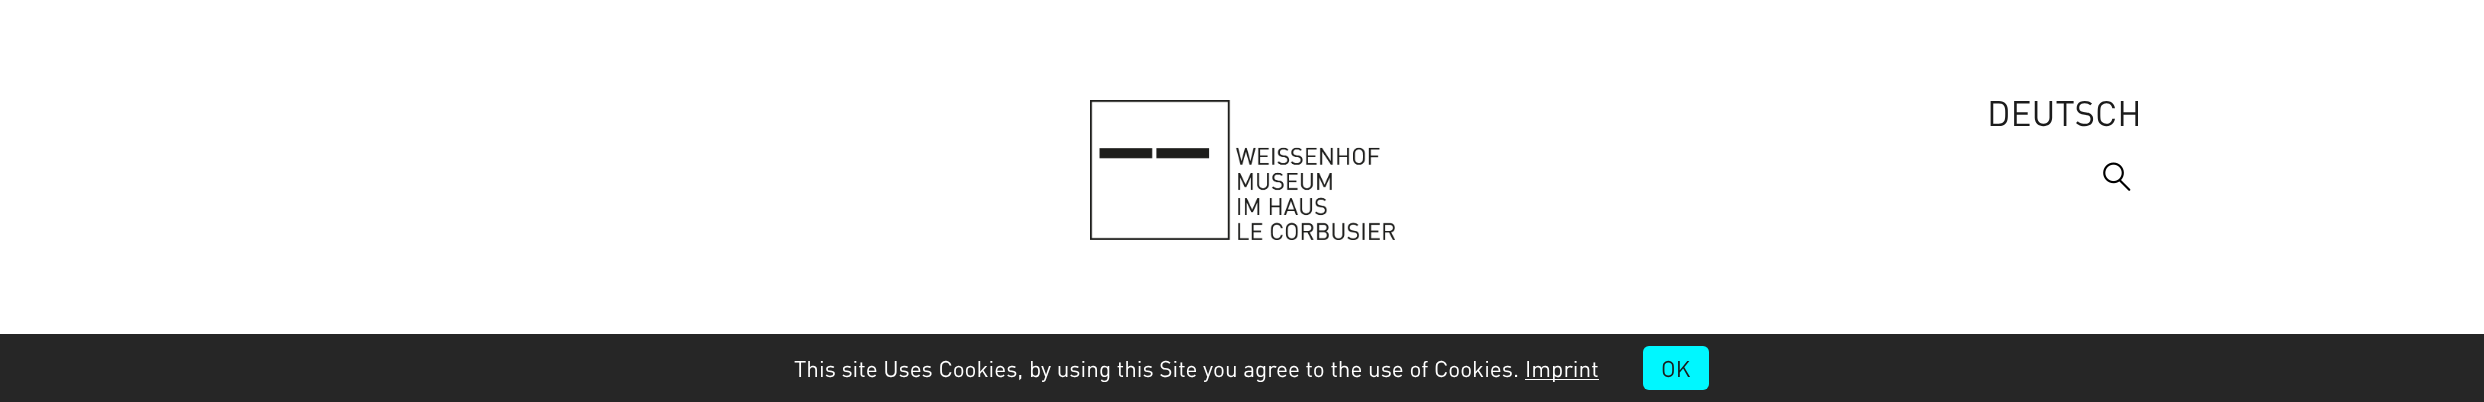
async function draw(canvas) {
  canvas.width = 2484;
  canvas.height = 402;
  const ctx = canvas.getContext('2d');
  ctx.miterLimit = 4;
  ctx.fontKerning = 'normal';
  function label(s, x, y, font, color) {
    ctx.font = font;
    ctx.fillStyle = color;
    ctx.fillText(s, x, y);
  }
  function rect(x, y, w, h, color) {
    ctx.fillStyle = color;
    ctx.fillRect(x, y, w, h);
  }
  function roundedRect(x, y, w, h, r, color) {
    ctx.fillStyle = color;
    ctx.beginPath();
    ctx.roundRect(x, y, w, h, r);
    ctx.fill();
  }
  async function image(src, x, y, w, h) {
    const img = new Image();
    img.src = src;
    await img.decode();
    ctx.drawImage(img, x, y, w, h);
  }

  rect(0, 0, 2484, 402, '#fff');
  await image('assets/img1.png', 1090, 100, 305, 140);
  label('DEUTSCH', 1987, 126, '35px DIN', '#1b1b1b');
  await image('assets/img2.png', 2103, 162, 28, 29);
  rect(0, 334, 2484, 68, '#000000d9');
  label('This site Uses Cookies, by using this Site you agree to the use of Cookies.', 794, 377, '22.5px DIN', '#fff');
  rect(1525, 379, 74, 1, '#fff');
  label('Imprint', 1525, 377, '22.5px DIN', '#fff');
  roundedRect(1643, 346, 66, 44, 6, '#00f7ff');
  label('OK', 1661, 377, '22.5px DIN', '#1b1b1b');
}

draw(document.querySelector('canvas'));
